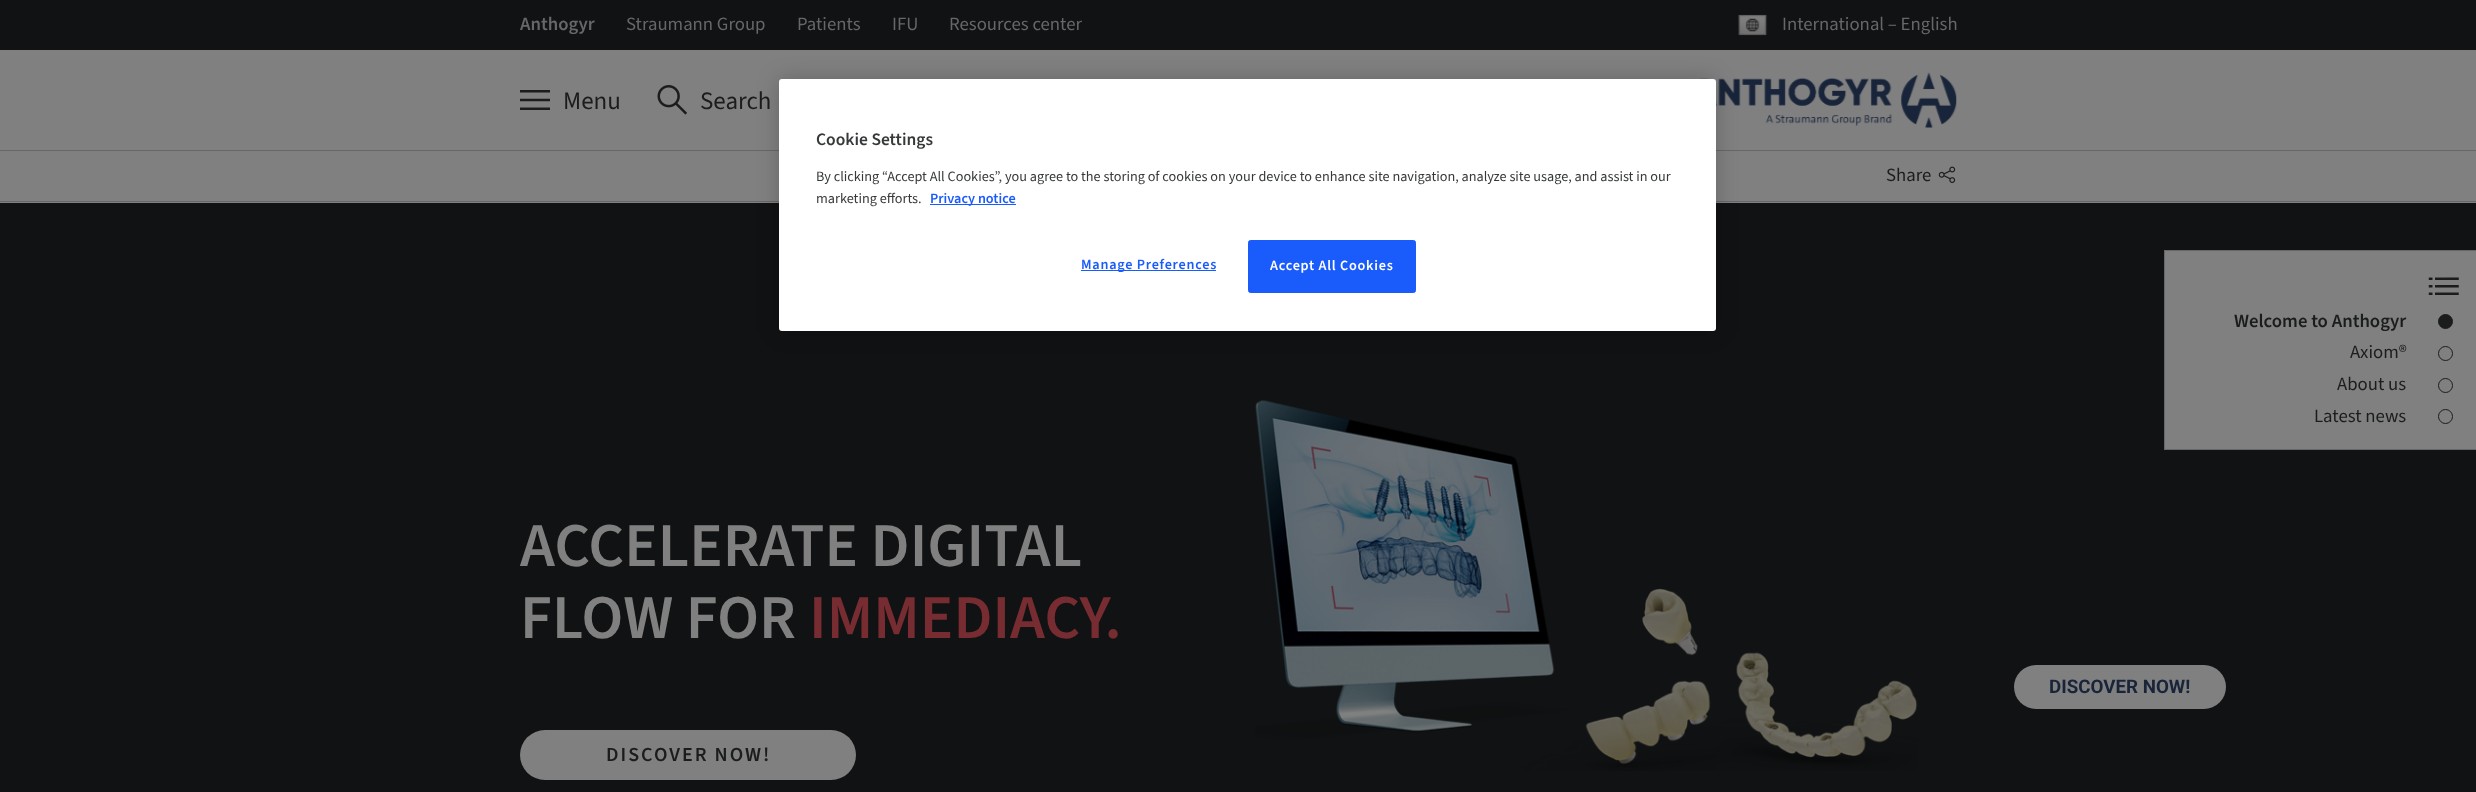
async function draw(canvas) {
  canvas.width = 2476;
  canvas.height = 792;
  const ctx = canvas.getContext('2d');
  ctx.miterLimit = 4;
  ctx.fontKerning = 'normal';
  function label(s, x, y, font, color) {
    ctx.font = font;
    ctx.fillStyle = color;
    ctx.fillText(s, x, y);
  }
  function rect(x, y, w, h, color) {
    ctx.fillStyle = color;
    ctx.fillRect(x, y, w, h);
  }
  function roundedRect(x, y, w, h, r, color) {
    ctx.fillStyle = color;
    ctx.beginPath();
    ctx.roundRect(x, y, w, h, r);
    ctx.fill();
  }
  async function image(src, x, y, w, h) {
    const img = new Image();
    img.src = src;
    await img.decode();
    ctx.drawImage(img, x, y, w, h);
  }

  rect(0, 0, 2476, 792, '#808080');
  rect(0, 0, 2476, 50, '#111213');
  label('Anthogyr', 520, 30, '600 18.75px "Source Sans 3"', '#676767');
  label('Straumann Group', 626, 30, '18.75px "Source Sans 3"', '#676767');
  label('Patients', 797, 30, '18.75px "Source Sans 3"', '#676767');
  label('IFU', 892, 30, '18.75px "Source Sans 3"', '#676767');
  label('Resources center', 949, 30, '18.75px "Source Sans 3"', '#676767');
  await image('assets/img1.png', 1738, 14, 30, 22);
  label('International – English', 1782, 30, '18.75px "Source Sans 3"', '#676767');
  rect(0, 150, 2476, 1, '#676767');
  await image('assets/img2.png', 520, 90, 30, 20);
  label('Menu', 563, 109, '25px "Source Sans 3"', '#1b1d1d');
  await image('assets/img3.png', 657, 85, 30, 30);
  label('Search', 700, 109, '25px "Source Sans 3"', '#1b1d1d');
  await image('assets/img4.png', 1699, 72, 258, 56);
  rect(0, 201, 2476, 1, '#676767');
  label('Share', 1886, 181, '18.75px "Source Sans 3"', '#1b1d1d');
  await image('assets/img5.png', 1938, 166, 18, 17);
  rect(0, 203, 2476, 589, '#111213');
  ctx.fillStyle = '#00000033';
  ctx.filter = 'blur(11px)';
  ctx.beginPath();
  ctx.roundRect(779, 79, 937, 252, 3);
  ctx.fill();
  ctx.filter = 'none';
  roundedRect(779, 79, 937, 252, 3, '#fff');
  label('Cookie Settings', 816, 145, '600 17.5px "Source Sans 3"', '#36393a');
  label('By clicking “Accept All Cookies”, you agree to the storing of cookies on your device to enhance site navigation, analyze site usage, and assist in our', 816, 181, '14.23px "Source Sans 3"', '#36393a');
  label('marketing efforts.', 816, 203, '14.23px "Source Sans 3"', '#36393a');
  rect(930, 204, 86, 1, '#1a5bfb');
  label('Privacy notice', 930, 203, '600 14.23px "Source Sans 3"', '#1a5bfb');
  rect(1081, 270, 135, 1, '#1a5bfb');
  ctx.letterSpacing = '0.75px';
  label('Manage Preferences', 1081, 269, '600 14.23px "Source Sans 3"', '#1a5bfb');
  ctx.beginPath();
  ctx.roundRect(1248.5, 240.5, 167, 52, 2);
  ctx.fill();
  ctx.strokeStyle = '#1a5bfb';
  ctx.stroke();
  label('Accept All Cookies', 1270, 270, '600 14.23px "Source Sans 3"', '#fff');
  rect(2165, 251, 311, 198, '#808080');
  rect(2164, 250, 312, 1, '#676767');
  rect(2164, 449, 312, 1, '#676767');
  rect(2164, 250, 1, 200, '#676767');
  await image('assets/img6.png', 2428, 277, 31, 18);
  ctx.letterSpacing = '0px';
  label('Welcome to Anthogyr', 2234, 327, '600 18.75px "Source Sans 3"', '#1b1d1d');
  ctx.beginPath();
  ctx.arc(2445.5, 321.5, 7, 0, 2 * Math.PI);
  ctx.fill();
  ctx.strokeStyle = '#1b1d1d';
  ctx.stroke();
  label('Axiom®', 2350, 358, '18.75px "Source Sans 3"', '#1b1d1d');
  ctx.beginPath();
  ctx.arc(2445.5, 353.5, 7, 0, 2 * Math.PI);
  ctx.stroke();
  label('About us', 2337, 390, '18.75px "Source Sans 3"', '#1b1d1d');
  ctx.beginPath();
  ctx.arc(2445.5, 385.5, 7, 0, 2 * Math.PI);
  ctx.stroke();
  label('Latest news', 2314, 422, '18.75px "Source Sans 3"', '#1b1d1d');
  ctx.beginPath();
  ctx.arc(2445.5, 416.5, 7, 0, 2 * Math.PI);
  ctx.stroke();
  label('ACCELERATE DIGITAL', 520, 566, '600 62.5px "Source Sans 3"', '#808080');
  label('FLOW FOR', 520, 638, '600 62.5px "Source Sans 3"', '#808080');
  label('IMMEDIACY.', 809, 638, '600 62.5px "Source Sans 3"', '#762c31');
  roundedRect(520, 730, 336, 50, 25, '#808080');
  ctx.letterSpacing = '2px';
  label('DISCOVER NOW!', 606, 761, '600 20px "Source Sans 3"', '#1b1d1d');
  await image('assets/img7.png', 1255, 400, 663, 371);
  roundedRect(2014, 665, 212, 44, 22, '#808080');
  ctx.letterSpacing = '0px';
  label('DISCOVER NOW!', 2049, 693, 'bold 18.75px Roboto', '#192439');
}

draw(document.querySelector('canvas'));
